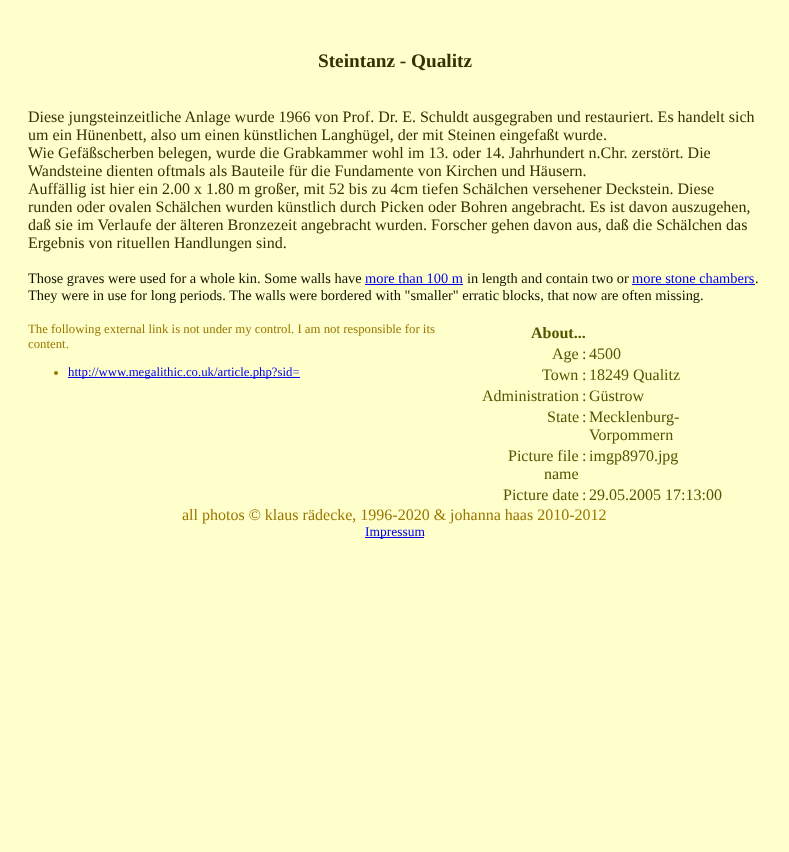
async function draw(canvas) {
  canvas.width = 789;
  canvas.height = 852;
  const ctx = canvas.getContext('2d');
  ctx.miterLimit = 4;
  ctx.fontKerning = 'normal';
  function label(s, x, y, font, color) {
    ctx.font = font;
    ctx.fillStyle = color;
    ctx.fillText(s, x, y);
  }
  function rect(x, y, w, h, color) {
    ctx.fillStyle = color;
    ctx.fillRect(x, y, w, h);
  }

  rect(0, 0, 789, 852, '#ffc');
  label('Steintanz - Qualitz', 318, 67, 'bold 19.25px Liberation Serif', '#330');
  label('Diese jungsteinzeitliche Anlage wurde 1966 von Prof. Dr. E. Schuldt ausgegraben und restauriert. Es handelt sich', 28, 122, '16px Liberation Serif', '#330');
  label('um ein Hünenbett, also um einen künstlichen Langhügel, der mit Steinen eingefaßt wurde.', 28, 140, '16px Liberation Serif', '#330');
  label('Wie Gefäßscherben belegen, wurde die Grabkammer wohl im 13. oder 14. Jahrhundert n.Chr. zerstört. Die', 28, 158, '16px Liberation Serif', '#330');
  label('Wandsteine dienten oftmals als Bauteile für die Fundamente von Kirchen und Häusern.', 28, 176, '16px Liberation Serif', '#330');
  label('Auffällig ist hier ein 2.00 x 1.80 m großer, mit 52 bis zu 4cm tiefen Schälchen versehener Deckstein. Diese', 28, 194, '16px Liberation Serif', '#330');
  label('runden oder ovalen Schälchen wurden künstlich durch Picken oder Bohren angebracht. Es ist davon auszugehen,', 28, 212, '16px Liberation Serif', '#330');
  label('daß sie im Verlaufe der älteren Bronzezeit angebracht wurden. Forscher gehen davon aus, daß die Schälchen das', 28, 230, '16px Liberation Serif', '#330');
  label('Ergebnis von rituellen Handlungen sind.', 28, 248, '16px Liberation Serif', '#330');
  label('Those graves were used for a whole kin. Some walls have', 28, 283, '14.4px Liberation Serif', '#121200');
  label('more than 100 m', 365, 283, '14.4px Liberation Serif', '#00e');
  rect(365, 284, 98, 1, '#00e');
  label('in length and contain two or', 467, 283, '14.4px Liberation Serif', '#121200');
  label('more stone chambers', 632, 283, '14.4px Liberation Serif', '#00e');
  label('.', 755, 283, '14.4px Liberation Serif', '#121200');
  rect(632, 284, 123, 1, '#00e');
  label('They were in use for long periods. The walls were bordered with "smaller" erratic blocks, that now are often missing.', 28, 300, '14.4px Liberation Serif', '#121200');
  label('The following external link is not under my control. I am not responsible for its', 28, 333, '12.8px Liberation Serif', '#970');
  label('content.', 28, 348, '12.8px Liberation Serif', '#970');
  ctx.beginPath();
  ctx.arc(56, 373, 2, 0, 2 * Math.PI);
  ctx.fill();
  rect(68, 377, 232, 1, '#00e');
  label('http://www.megalithic.co.uk/article.php?sid=', 68, 376, '12.8px Liberation Serif', '#00e');
  label('About...', 531, 338, 'bold 16px Liberation Serif', '#550');
  label('Age', 552, 359, '16px Liberation Serif', '#550');
  label(':', 582, 359, '16px Liberation Serif', '#550');
  label('4500', 589, 359, '16px Liberation Serif', '#550');
  label('Town', 542, 380, '16px Liberation Serif', '#550');
  label(':', 582, 380, '16px Liberation Serif', '#550');
  label('18249 Qualitz', 589, 380, '16px Liberation Serif', '#550');
  label('Administration', 482, 401, '16px Liberation Serif', '#550');
  label(':', 582, 401, '16px Liberation Serif', '#550');
  label('Güstrow', 589, 401, '16px Liberation Serif', '#550');
  label('State', 547, 422, '16px Liberation Serif', '#550');
  label(':', 582, 422, '16px Liberation Serif', '#550');
  label('Mecklenburg-', 589, 422, '16px Liberation Serif', '#550');
  label('Vorpommern', 589, 440, '16px Liberation Serif', '#550');
  label('Picture file', 508, 461, '16px Liberation Serif', '#550');
  label('name', 544, 479, '16px Liberation Serif', '#550');
  label(':', 582, 461, '16px Liberation Serif', '#550');
  label('imgp8970.jpg', 589, 461, '16px Liberation Serif', '#550');
  label('Picture date', 503, 500, '16px Liberation Serif', '#550');
  label(':', 582, 500, '16px Liberation Serif', '#550');
  label('29.05.2005 17:13:00', 589, 500, '16px Liberation Serif', '#550');
  label('all photos © klaus rädecke, 1996-2020 & johanna haas 2010-2012', 182, 520, '16px Liberation Serif', '#970');
  rect(365, 537, 59, 1, '#00e');
  label('Impressum', 365, 536, '13.5px Liberation Serif', '#00e');
}

draw(document.querySelector('canvas'));
